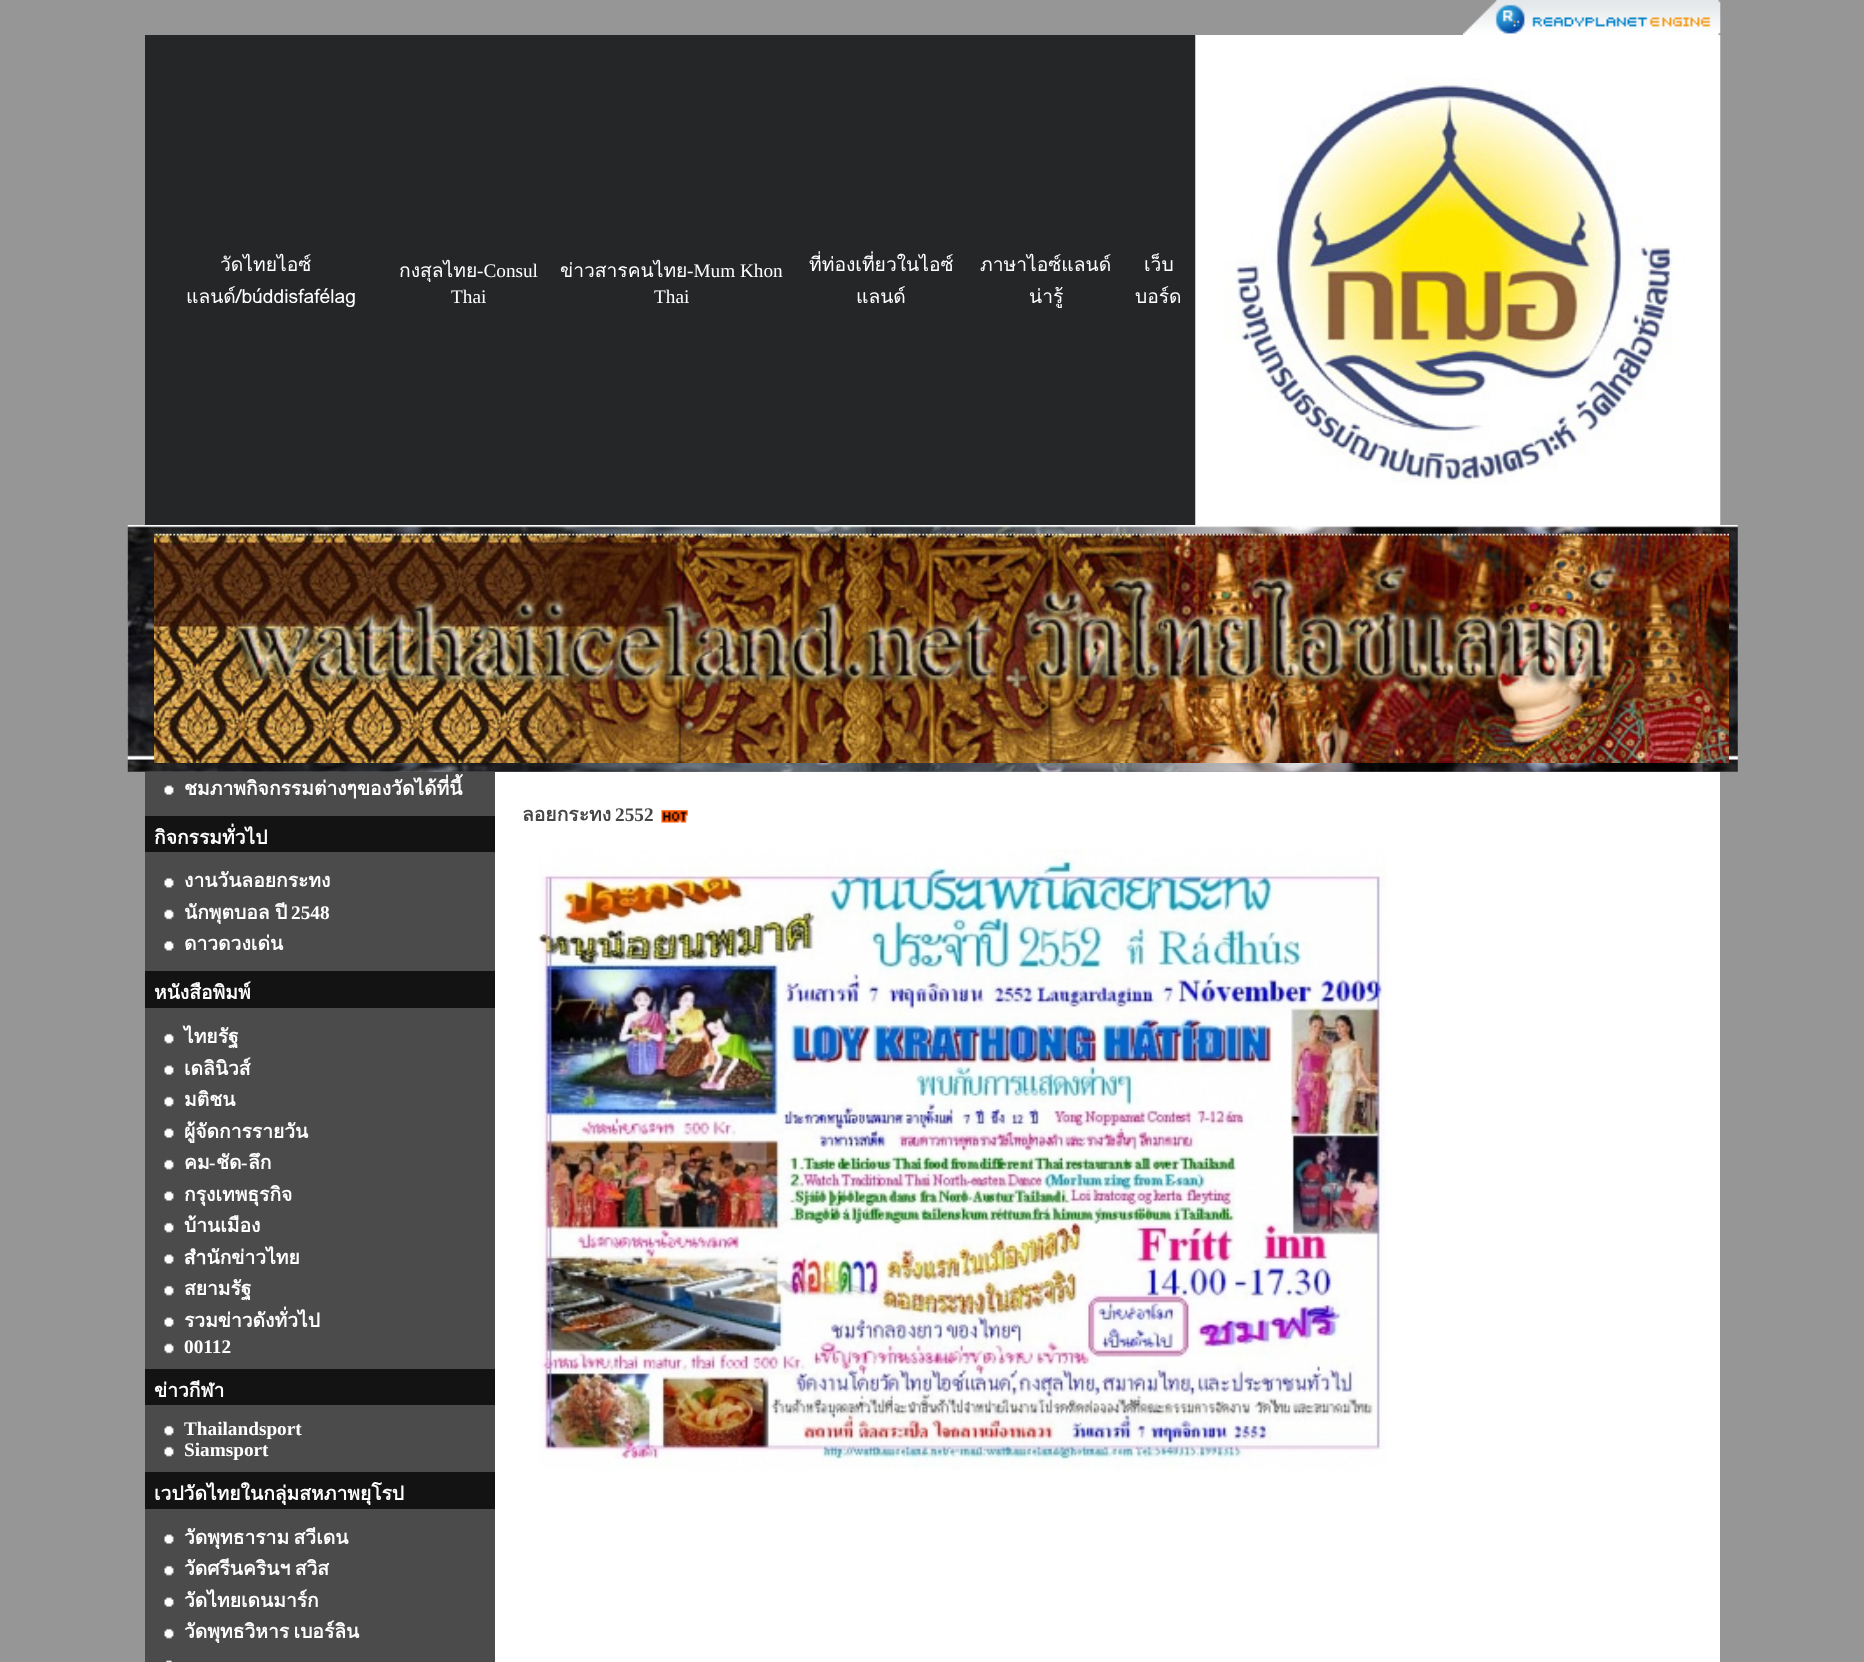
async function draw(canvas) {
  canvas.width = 1864;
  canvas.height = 1662;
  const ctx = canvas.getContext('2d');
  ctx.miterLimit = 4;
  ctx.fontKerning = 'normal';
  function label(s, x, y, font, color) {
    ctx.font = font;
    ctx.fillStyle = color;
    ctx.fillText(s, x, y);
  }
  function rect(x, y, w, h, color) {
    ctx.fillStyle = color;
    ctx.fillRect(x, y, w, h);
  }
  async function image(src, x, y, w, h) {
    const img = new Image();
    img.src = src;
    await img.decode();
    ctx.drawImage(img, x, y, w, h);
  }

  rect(0, 0, 1864, 1662, '#979696');
  await image('assets/img1.png', 1463, 0, 258, 35);
  rect(145, 35, 1051, 490, '#242628');
  label('วัดไทยไอซ์', 220, 271, '19.25px Loma', '#fff');
  label('แลนด์/búddisfafélag', 186, 303, '19.25px Loma', '#fff');
  label('กงสุลไทย', 399, 277, '19.25px Loma', '#fff');
  label('-Consul', 477, 277, '19.25px Liberation Serif', '#fff');
  label('Thai', 451, 303, '19.25px Liberation Serif', '#fff');
  label('ข่าวสารคนไทย', 560, 277, '19.25px Loma', '#fff');
  label('-Mum Khon', 687, 277, '19.25px Liberation Serif', '#fff');
  label('Thai', 654, 303, '19.25px Liberation Serif', '#fff');
  label('ที่ท่องเที่ยวในไอซ์', 809, 271, '19.25px Loma', '#fff');
  label('แลนด์', 856, 303, '19.25px Loma', '#fff');
  label('ภาษาไอซ์แลนด์', 980, 271, '19.25px Loma', '#fff');
  label('น่ารู้', 1029, 303, '19.25px Loma', '#fff');
  label('เว็บ', 1144, 271, '19.25px Loma', '#fff');
  label('บอร์ด', 1135, 303, '19.25px Loma', '#fff');
  await image('assets/img2.png', 1195, 35, 526, 490);
  await image('assets/img3.png', 127, 525, 1611, 247);
  await image('assets/img4.png', 154, 533, 1575, 230);
  rect(145, 772, 350, 890, '#4b4b4b');
  await image('assets/img5.png', 164, 785, 10, 10);
  label('ชมภาพกิจกรรมต่างๆของวัดได้ที่นี้', 184, 795, 'bold 19.25px Loma', '#fff');
  rect(145, 816, 350, 36, '#131313');
  label('กิจกรรมทั่วไป', 154, 844, 'bold 19.25px Loma', '#fff');
  await image('assets/img6.png', 164, 878, 10, 10);
  label('งานวันลอยกระทง', 184, 887, 'bold 19.25px Loma', '#fff');
  await image('assets/img7.png', 164, 909, 10, 11);
  ctx.wordSpacing = '-1px';
  label('นักพุตบอล ปี', 184, 919, 'bold 19.25px Loma', '#fff');
  ctx.wordSpacing = '0px';
  label('2548', 291, 919, 'bold 19.25px Liberation Serif', '#fff');
  await image('assets/img6.png', 164, 941, 10, 10);
  label('ดาวดวงเด่น', 184, 950, 'bold 19.25px Loma', '#fff');
  rect(145, 971, 350, 37, '#131313');
  label('หนังสือพิมพ์', 154, 999, 'bold 19.25px Loma', '#fff');
  await image('assets/img8.png', 164, 1033, 10, 11);
  label('ไทยรัฐ', 184, 1043, 'bold 19.25px Loma', '#fff');
  await image('assets/img5.png', 164, 1065, 10, 10);
  label('เดลินิวส์', 184, 1075, 'bold 19.25px Loma', '#fff');
  await image('assets/img8.png', 164, 1096, 10, 11);
  label('มติชน', 184, 1106, 'bold 19.25px Loma', '#fff');
  await image('assets/img5.png', 164, 1128, 10, 10);
  label('ผู้จัดการรายวัน', 184, 1138, 'bold 19.25px Loma', '#fff');
  await image('assets/img8.png', 164, 1159, 10, 11);
  label('คม', 184, 1169, 'bold 19.25px Loma', '#fff');
  label('-', 209, 1169, 'bold 19.25px Liberation Serif', '#fff');
  label('ชัด', 216, 1169, 'bold 19.25px Loma', '#fff');
  label('-', 241, 1169, 'bold 19.25px Liberation Serif', '#fff');
  label('ลึก', 248, 1169, 'bold 19.25px Loma', '#fff');
  await image('assets/img5.png', 164, 1191, 10, 10);
  label('กรุงเทพธุรกิจ', 184, 1201, 'bold 19.25px Loma', '#fff');
  await image('assets/img8.png', 164, 1222, 10, 11);
  label('บ้านเมือง', 184, 1232, 'bold 19.25px Loma', '#fff');
  await image('assets/img5.png', 164, 1254, 10, 10);
  label('สำนักข่าวไทย', 184, 1264, 'bold 19.25px Loma', '#fff');
  await image('assets/img8.png', 164, 1285, 10, 11);
  label('สยามรัฐ', 184, 1295, 'bold 19.25px Loma', '#fff');
  await image('assets/img5.png', 164, 1317, 10, 10);
  label('รวมข่าวดังทั่วไป', 184, 1327, 'bold 19.25px Loma', '#fff');
  await image('assets/img7.png', 164, 1343, 10, 11);
  label('00112', 184, 1353, 'bold 19.25px Liberation Serif', '#fff');
  rect(145, 1369, 350, 36, '#131313');
  label('ข่าวกีฬา', 154, 1397, 'bold 19.25px Loma', '#fff');
  await image('assets/img8.png', 164, 1425, 10, 11);
  label('Thailandsport', 184, 1435, 'bold 19.25px Liberation Serif', '#fff');
  await image('assets/img8.png', 164, 1446, 10, 11);
  label('Siamsport', 184, 1456, 'bold 19.25px Liberation Serif', '#fff');
  rect(145, 1472, 350, 37, '#131313');
  label('เวปวัดไทยในกลุ่มสหภาพยุโรป', 154, 1500, 'bold 19.25px Loma', '#fff');
  await image('assets/img5.png', 164, 1534, 10, 10);
  ctx.wordSpacing = '-2px';
  label('วัดพุทธาราม สวีเดน', 184, 1544, 'bold 19.25px Loma', '#fff');
  await image('assets/img8.png', 164, 1565, 10, 11);
  label('วัดศรีนครินฯ สวิส', 184, 1575, 'bold 19.25px Loma', '#fff');
  await image('assets/img5.png', 164, 1597, 10, 10);
  ctx.wordSpacing = '0px';
  label('วัดไทยเดนมาร์ก', 184, 1607, 'bold 19.25px Loma', '#fff');
  await image('assets/img8.png', 164, 1628, 10, 11);
  ctx.wordSpacing = '-2px';
  label('วัดพุทธวิหาร เบอร์ลิน', 184, 1638, 'bold 19.25px Loma', '#fff');
  await image('assets/img9.png', 165, 1660, 7, 2);
  rect(495, 772, 1225, 890, '#fff');
  ctx.wordSpacing = '0px';
  label('ลอยกระทง', 522, 821, 'bold 19.25px Loma', '#464646');
  label('2552', 615, 821, 'bold 19.25px Liberation Serif', '#464646');
  await image('assets/img10.png', 661, 810, 27, 13);
  await image('assets/img11.png', 538, 849, 849, 621);
}

draw(document.querySelector('canvas'));
